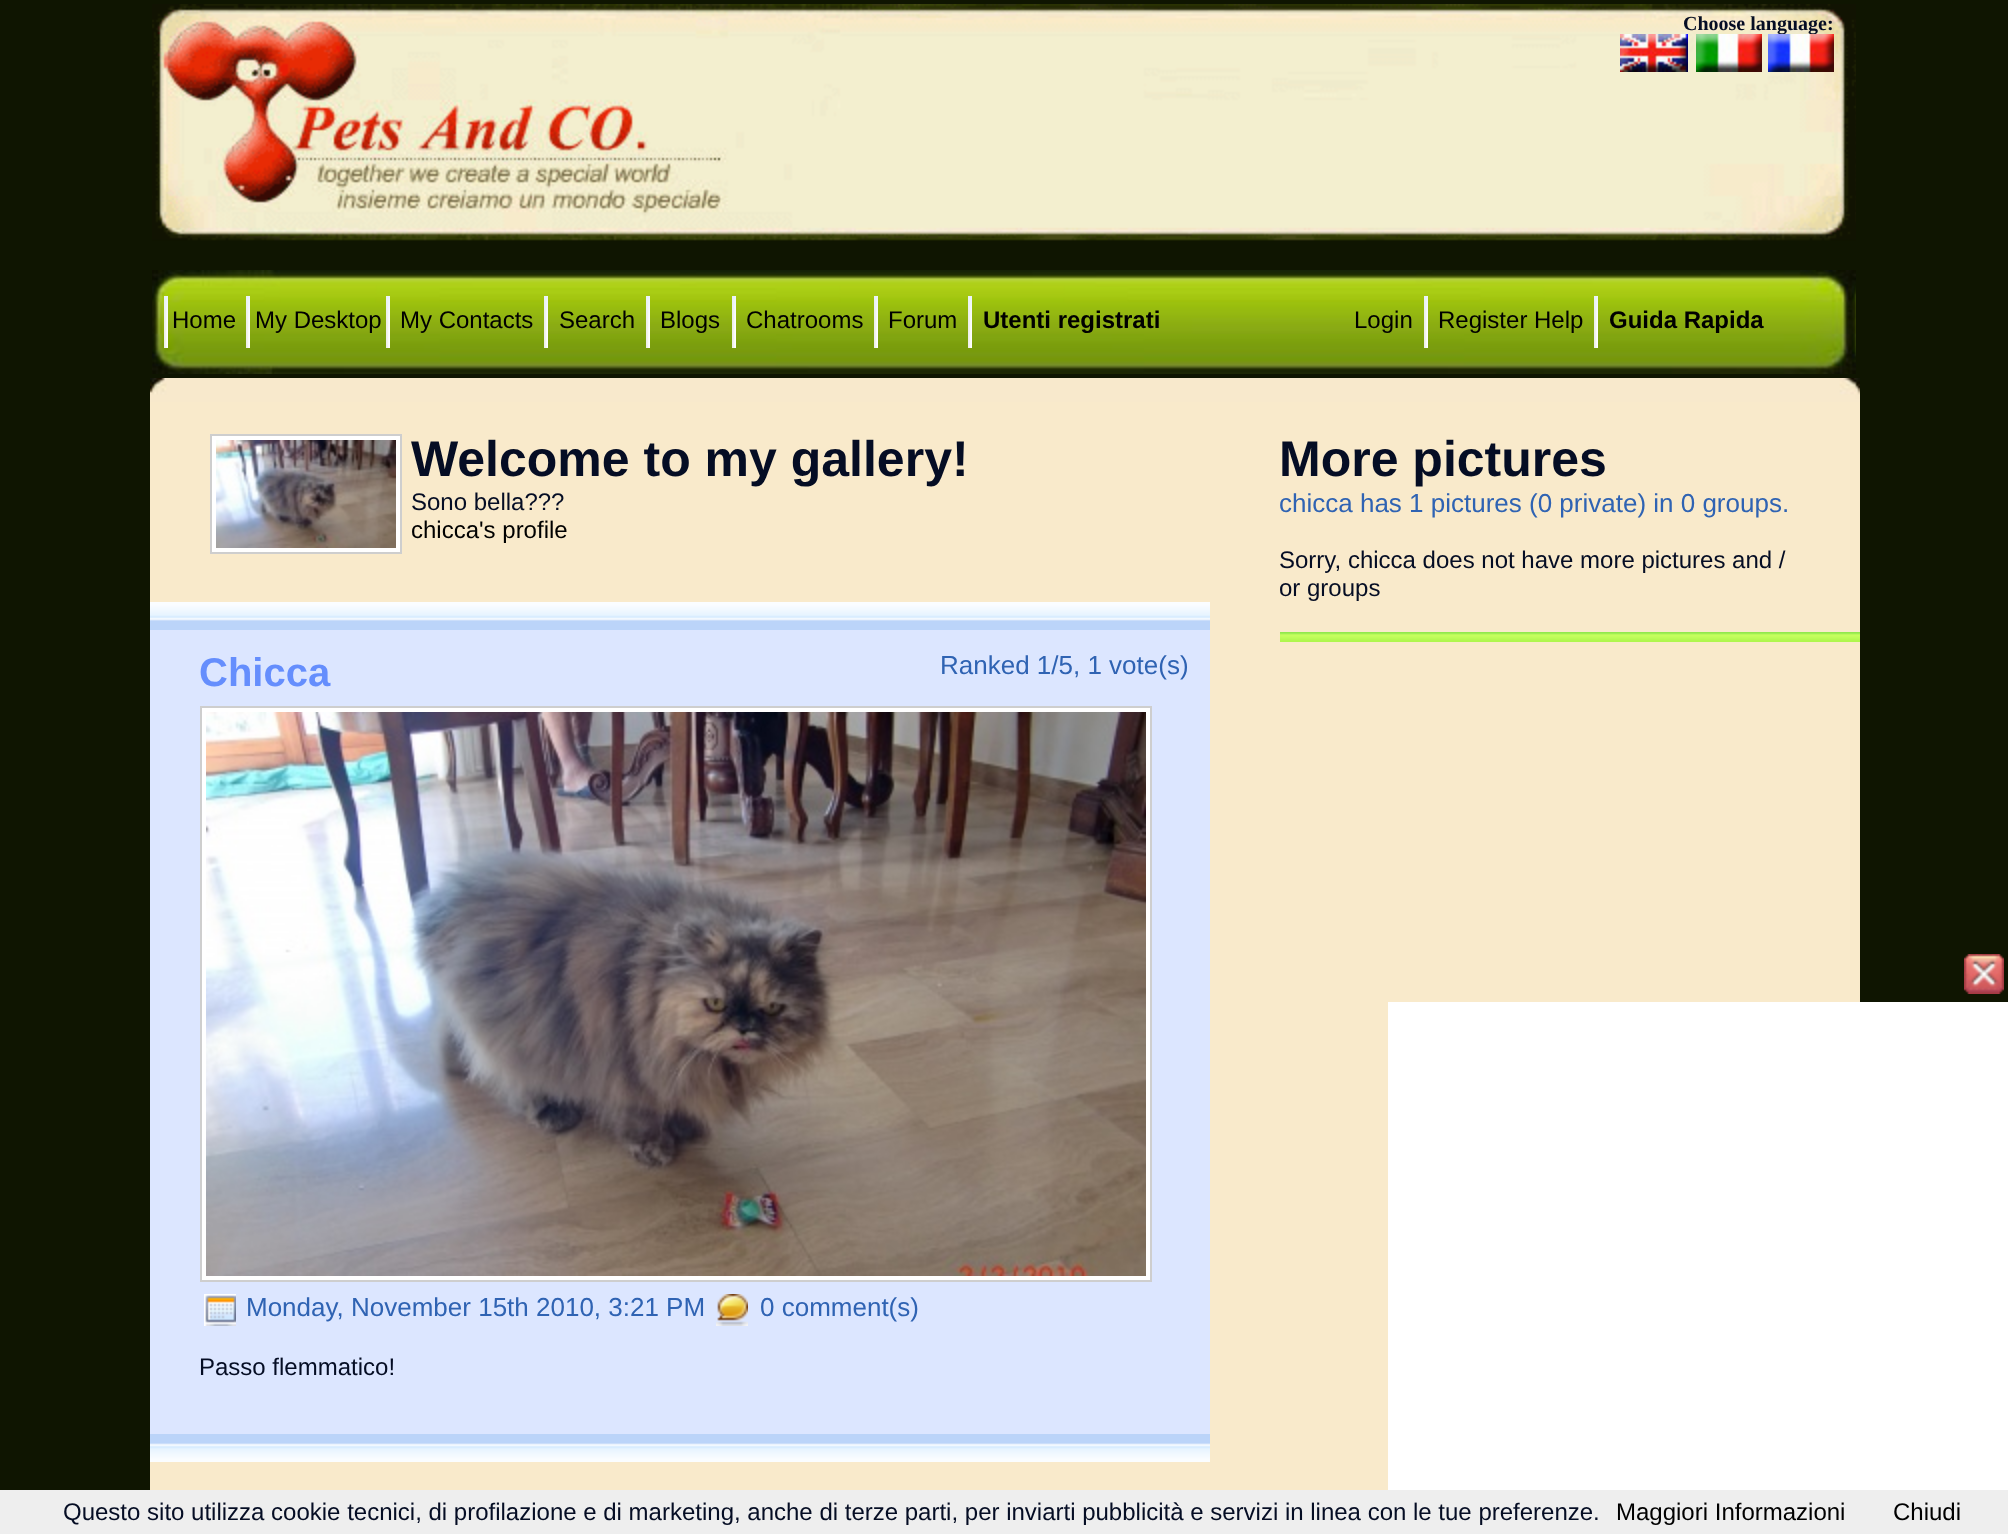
async function draw(canvas) {
  canvas.width = 2008;
  canvas.height = 1534;
  const ctx = canvas.getContext('2d');
  ctx.miterLimit = 4;
  ctx.fontKerning = 'normal';
  function label(s, x, y, font, color) {
    ctx.font = font;
    ctx.fillStyle = color;
    ctx.fillText(s, x, y);
  }
  function rect(x, y, w, h, color) {
    ctx.fillStyle = color;
    ctx.fillRect(x, y, w, h);
  }
  async function image(src, x, y, w, h) {
    const img = new Image();
    img.src = src;
    await img.decode();
    ctx.drawImage(img, x, y, w, h);
  }

  rect(0, 0, 2008, 1534, '#0f1501');
  await image('assets/img1.png', 152, 4, 1704, 237);
  label('Choose language:', 1683, 30, 'bold 20px Liberation Serif', '#050d24');
  await image('assets/img2.png', 1620, 34, 68, 38);
  await image('assets/img3.png', 1696, 34, 66, 38);
  await image('assets/img4.png', 1768, 34, 66, 38);
  await image('assets/img5.png', 152, 270, 1704, 104);
  await image('assets/img6.png', 164, 296, 4, 52);
  label('Home', 172, 328, '24px Liberation Sans', '#000');
  await image('assets/img6.png', 246, 296, 4, 52);
  label('My Desktop', 255, 328, '24px Liberation Sans', '#000');
  await image('assets/img6.png', 386, 296, 4, 52);
  label('My Contacts', 400, 328, '24px Liberation Sans', '#000');
  await image('assets/img6.png', 544, 296, 4, 52);
  label('Search', 559, 328, '24px Liberation Sans', '#000');
  await image('assets/img6.png', 646, 296, 4, 52);
  label('Blogs', 660, 328, '24px Liberation Sans', '#000');
  await image('assets/img6.png', 732, 296, 4, 52);
  label('Chatrooms', 746, 328, '24px Liberation Sans', '#000');
  await image('assets/img6.png', 874, 296, 4, 52);
  label('Forum', 888, 328, '24px Liberation Sans', '#000');
  await image('assets/img6.png', 968, 296, 4, 52);
  label('Utenti registrati', 983, 328, 'bold 24px Liberation Sans', '#000');
  label('Login', 1354, 328, '24px Liberation Sans', '#000');
  await image('assets/img6.png', 1424, 296, 4, 52);
  label('Register Help', 1438, 328, '24px Liberation Sans', '#000');
  await image('assets/img6.png', 1594, 296, 4, 52);
  label('Guida Rapida', 1609, 328, 'bold 24px Liberation Sans', '#000');
  await image('assets/img7.png', 150, 378, 1710, 24);
  rect(150, 402, 1710, 1088, '#f9eacb');
  ctx.fillStyle = '#fff';
  ctx.beginPath();
  ctx.rect(211, 435, 190, 118);
  ctx.fill();
  ctx.strokeStyle = '#cecece';
  ctx.lineWidth = 2;
  ctx.stroke();
  await image('assets/img8.png', 216, 440, 180, 108);
  label('Welcome to my gallery!', 411, 476, 'bold 50px Liberation Sans', '#050d24');
  label('Sono bella???', 411, 510, '24px Liberation Sans', '#050d24');
  label('chicca\'s profile', 411, 538, '24px Liberation Sans', '#000');
  await image('assets/img9.png', 150, 602, 1060, 28);
  rect(150, 630, 1060, 20, '#dce6ff');
  rect(150, 650, 1060, 784, '#dce6ff');
  label('Chicca', 199, 686, 'bold 40px Liberation Sans', '#658efd');
  label('Ranked 1/5, 1 vote(s)', 940, 674, '26px Liberation Sans', '#2f63b3');
  ctx.fillStyle = '#fff';
  ctx.beginPath();
  ctx.rect(201, 707, 950, 574);
  ctx.fill();
  ctx.stroke();
  await image('assets/img10.png', 206, 712, 940, 564);
  await image('assets/img11.png', 204, 1294, 32, 32);
  label('Monday, November 15th 2010, 3:21 PM', 246, 1316, '26px Liberation Sans', '#2f63b3');
  await image('assets/img12.png', 716, 1294, 32, 32);
  label('0 comment(s)', 760, 1316, '26px Liberation Sans', '#2f63b3');
  label('Passo flemmatico!', 199, 1375, '24px Liberation Sans', '#050d24');
  await image('assets/img13.png', 150, 1434, 1060, 28);
  label('More pictures', 1279, 476, 'bold 50px Liberation Sans', '#050d24');
  label('chicca has 1 pictures (0 private) in 0 groups.', 1279, 512, '26px Liberation Sans', '#2f63b3');
  label('Sorry, chicca does not have more pictures and /', 1279, 568, '24px Liberation Sans', '#050d24');
  label('or groups', 1279, 596, '24px Liberation Sans', '#050d24');
  await image('assets/img14.png', 1280, 632, 580, 10);
  await image('assets/img15.png', 1388, 954, 620, 536);
  rect(0, 1490, 2008, 44, '#eee');
  label('Questo sito utilizza cookie tecnici, di profilazione e di marketing, anche di terze parti, per inviarti pubblicità e servizi in linea con le tue preferenze.', 63, 1520, '24px Liberation Sans', '#050d24');
  label('Maggiori Informazioni', 1616, 1520, '24px Liberation Sans', '#000');
  label('Chiudi', 1893, 1520, '24px Liberation Sans', '#000');
}

draw(document.querySelector('canvas'));
